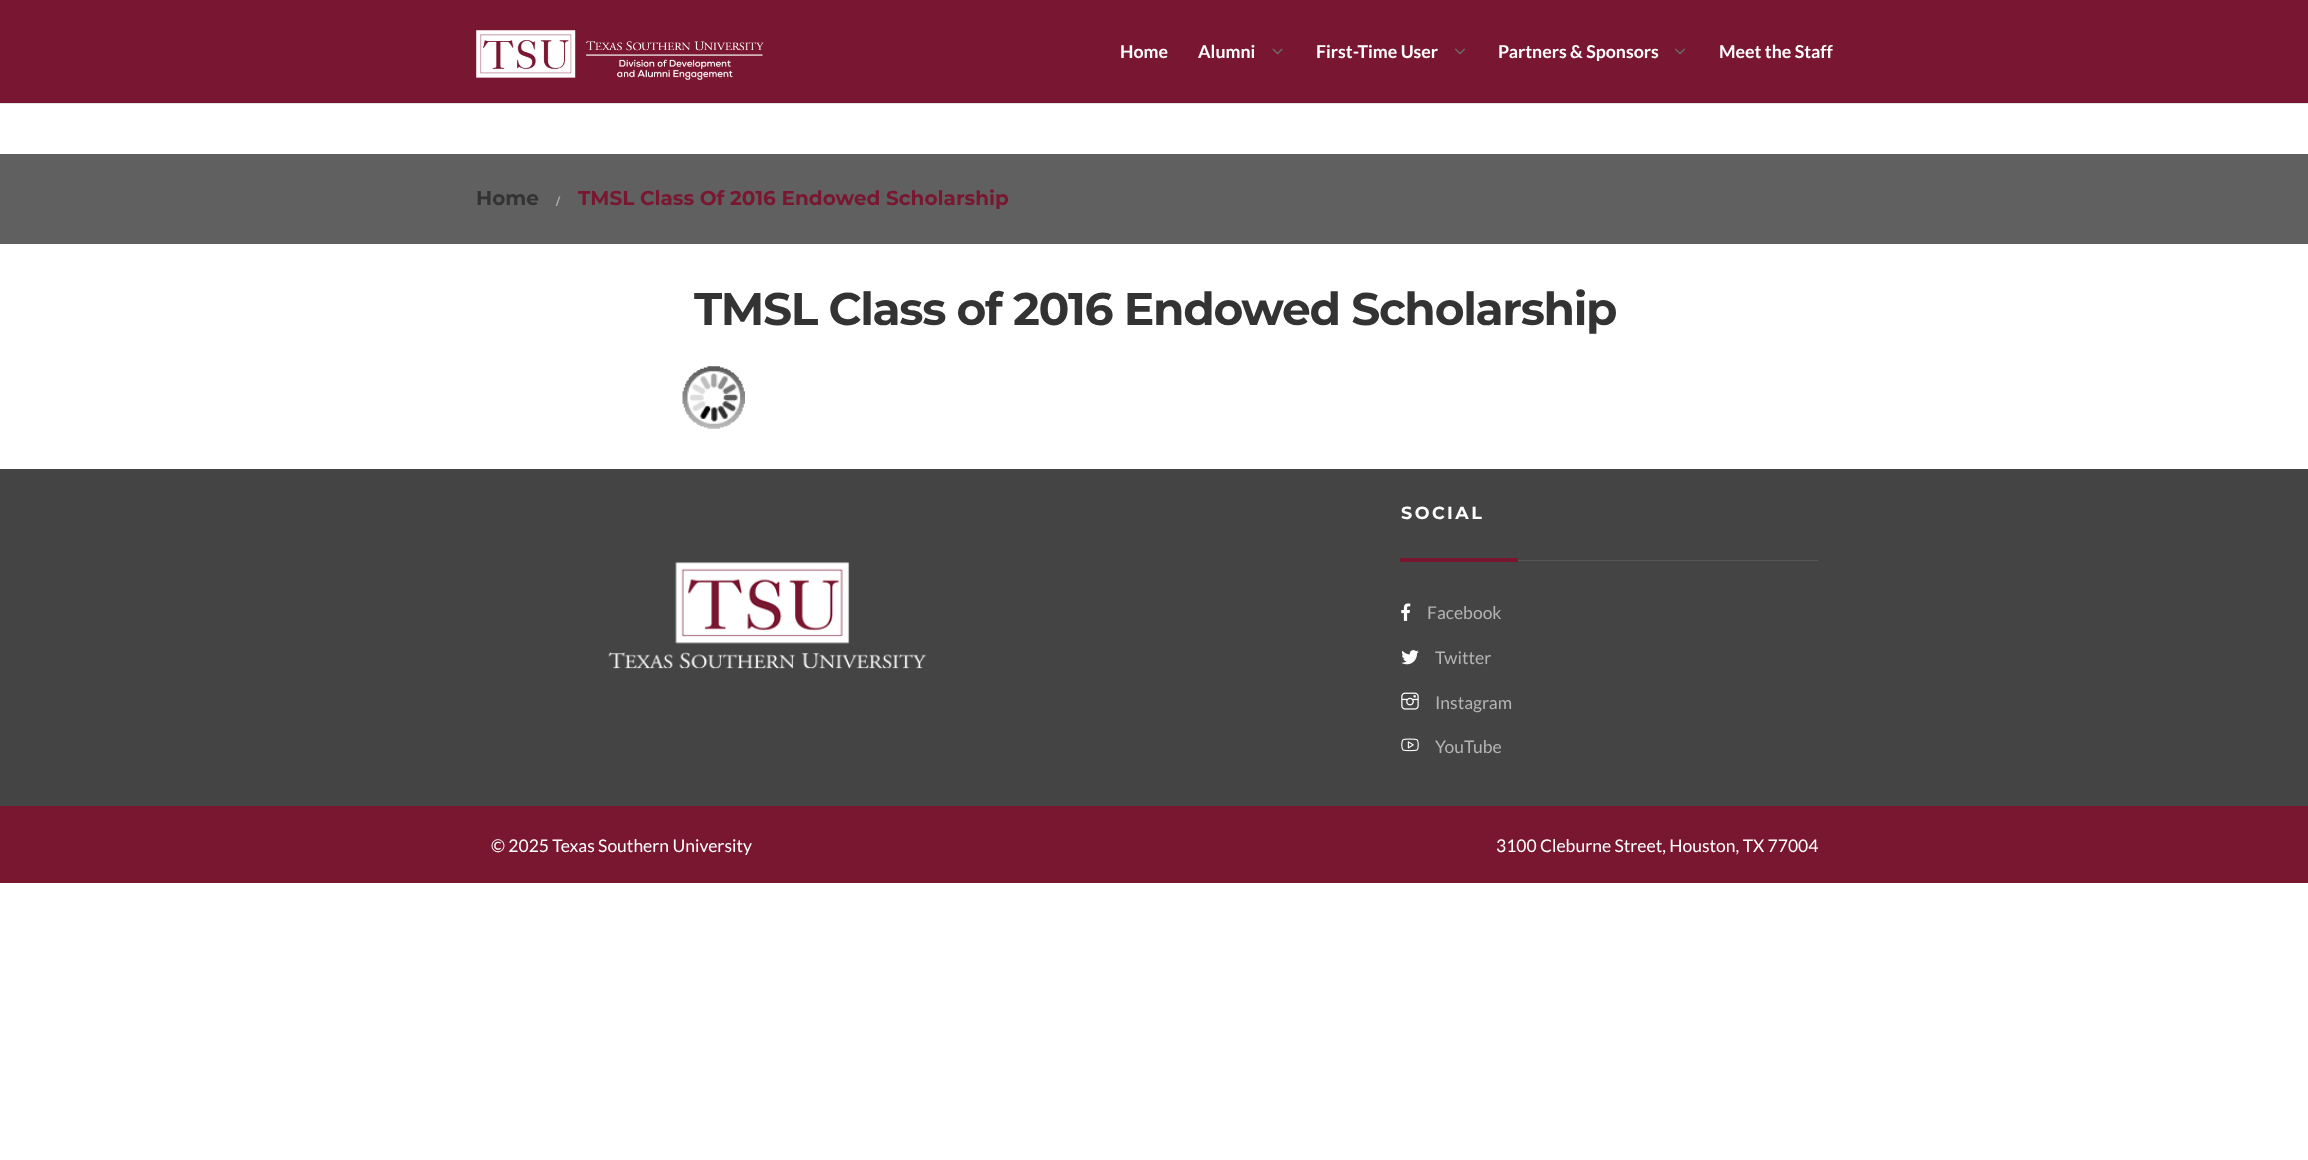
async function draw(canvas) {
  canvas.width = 2308;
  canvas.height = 1160;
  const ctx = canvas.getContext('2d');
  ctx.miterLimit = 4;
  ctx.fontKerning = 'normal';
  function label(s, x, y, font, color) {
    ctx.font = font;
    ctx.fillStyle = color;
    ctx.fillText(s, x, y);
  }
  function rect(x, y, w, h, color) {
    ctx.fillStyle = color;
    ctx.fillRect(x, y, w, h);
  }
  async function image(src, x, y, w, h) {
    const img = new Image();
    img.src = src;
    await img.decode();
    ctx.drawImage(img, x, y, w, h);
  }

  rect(0, 0, 2308, 1160, '#fff');
  rect(0, 0, 2308, 103, '#791631');
  rect(0, 103, 2308, 1, '#e3e3e3');
  await image('assets/img1.png', 476, 30, 288, 50);
  label('Home', 1120, 58, 'bold 17.75px Lato', '#fff');
  label('Alumni', 1198, 58, 'bold 17.75px Lato', '#fff');
  await image('assets/img2.png', 1272, 48, 11, 7);
  label('First-Time User', 1316, 58, 'bold 17.75px Lato', '#fff');
  await image('assets/img3.png', 1455, 48, 10, 7);
  label('Partners & Sponsors', 1498, 58, 'bold 17.75px Lato', '#fff');
  await image('assets/img3.png', 1675, 48, 10, 7);
  label('Meet the Staff', 1719, 58, 'bold 17.75px Lato', '#fff');
  rect(0, 154, 2308, 90, '#606060');
  label('Home', 476, 205, 'bold 20px Montserrat', '#333');
  label('/', 556, 205, 'bold 10px Montserrat', '#aeaeae');
  label('TMSL Class Of 2016 Endowed Scholarship', 578, 205, 'bold 20px Montserrat', '#791630');
  ctx.letterSpacing = '-1.35px';
  label('TMSL Class of 2016 Endowed Scholarship', 694, 325, 'bold 45.6px Montserrat', '#333');
  await image('assets/img4.png', 682, 366, 63, 63);
  rect(0, 469, 2308, 337, '#444');
  await image('assets/img5.png', 608, 562, 319, 107);
  ctx.letterSpacing = '2.5px';
  label('SOCIAL', 1401, 519, 'bold 17.5px Montserrat', '#fff');
  rect(1400, 558, 118, 4, '#791630');
  rect(1518, 560, 300, 1, '#575757');
  await image('assets/img6.png', 1401, 603, 10, 18);
  ctx.letterSpacing = '0px';
  label('Facebook', 1427, 619, '17.5px Lato', '#b4b4b4');
  await image('assets/img7.png', 1401, 650, 18, 15);
  label('Twitter', 1435, 664, '17.5px Lato', '#b4b4b4');
  await image('assets/img8.png', 1401, 692, 18, 18);
  label('Instagram', 1435, 709, '17.5px Lato', '#b4b4b4');
  await image('assets/img9.png', 1401, 738, 18, 14);
  label('YouTube', 1435, 753, '17.5px Lato', '#b4b4b4');
  rect(0, 806, 2308, 77, '#791630');
  label('© 2025 Texas Southern University', 491, 852, '17.5px Lato', '#fff');
  label('3100 Cleburne Street, Houston, TX 77004', 1496, 852, '17.5px Lato', '#fff');
}

draw(document.querySelector('canvas'));
